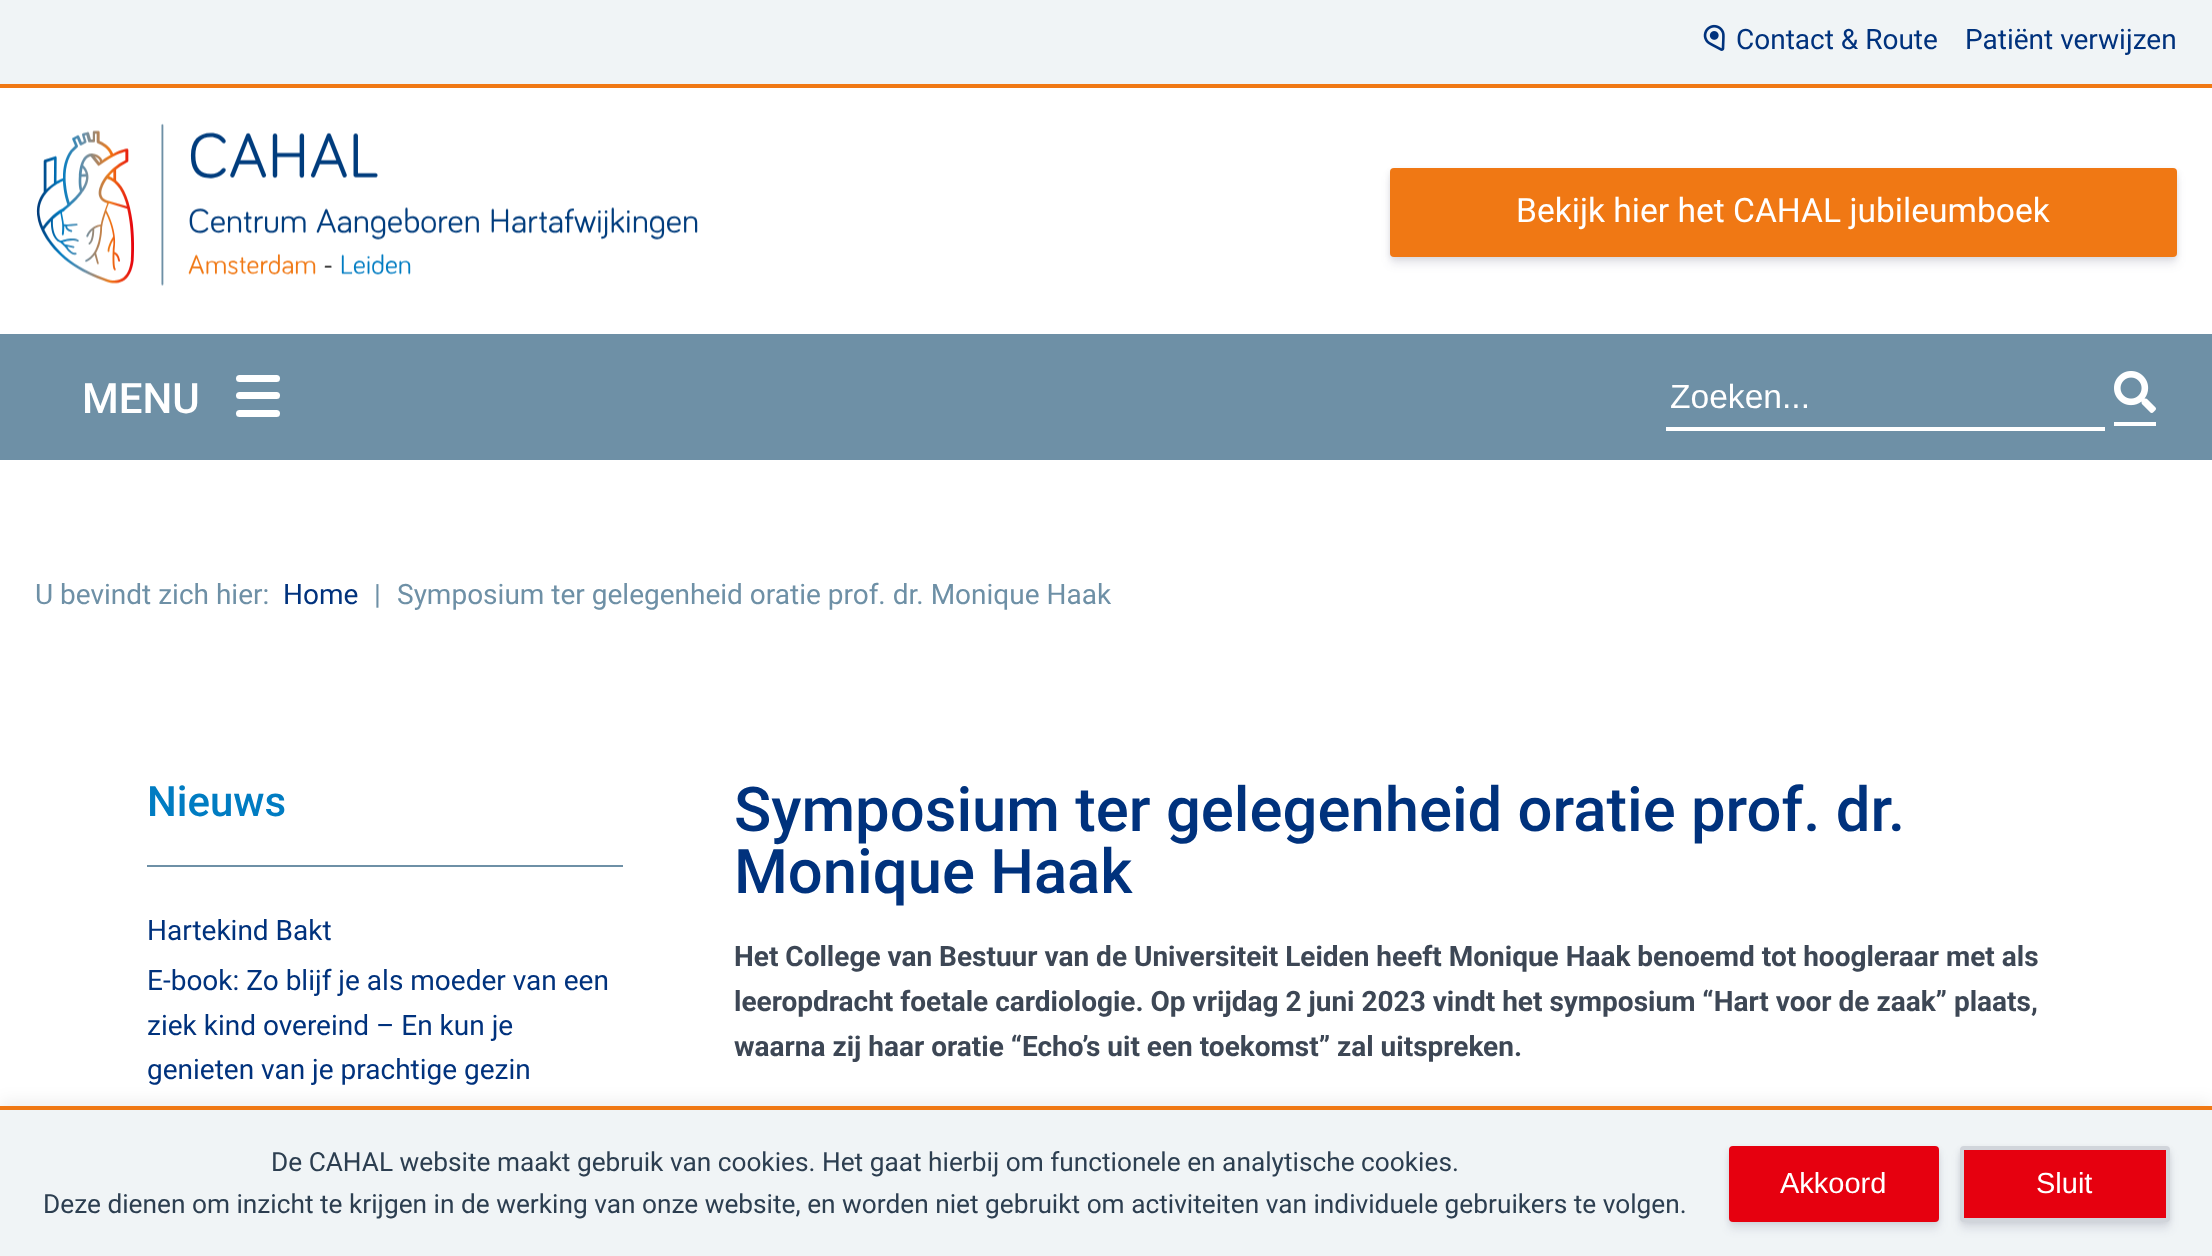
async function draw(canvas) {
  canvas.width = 2212;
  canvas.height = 1256;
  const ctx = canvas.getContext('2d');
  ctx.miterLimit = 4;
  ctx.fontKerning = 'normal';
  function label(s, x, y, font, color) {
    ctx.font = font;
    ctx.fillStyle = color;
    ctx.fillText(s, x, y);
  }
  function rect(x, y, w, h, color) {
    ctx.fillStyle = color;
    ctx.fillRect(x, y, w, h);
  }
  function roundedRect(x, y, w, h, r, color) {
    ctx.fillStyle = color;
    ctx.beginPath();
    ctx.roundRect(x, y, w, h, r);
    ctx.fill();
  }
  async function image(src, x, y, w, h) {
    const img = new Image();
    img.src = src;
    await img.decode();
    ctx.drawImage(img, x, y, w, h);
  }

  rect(0, 0, 2212, 1256, '#fff');
  rect(0, 0, 2212, 84, '#f0f4f6');
  rect(0, 84, 2212, 4, '#f07814');
  await image('assets/img1.png', 1703, 24, 22, 27);
  label('Contact & Route', 1736, 49, '28px Roboto', '#00327d');
  label('Patiënt verwijzen', 1965, 49, '28px Roboto', '#00327d');
  await image('assets/img2.png', 36, 123, 662, 163);
  ctx.fillStyle = '#00000014';
  ctx.filter = 'blur(2.5px)';
  ctx.beginPath();
  ctx.roundRect(1390, 170, 787, 89, 4);
  ctx.fill();
  ctx.filter = 'none';
  ctx.fillStyle = '#32325d1c';
  ctx.filter = 'blur(5px)';
  ctx.beginPath();
  ctx.roundRect(1390, 175, 787, 89, 4);
  ctx.fill();
  ctx.filter = 'none';
  roundedRect(1390, 168, 787, 89, 4, '#f07814');
  label('Bekijk hier het CAHAL jubileumboek', 1516, 222, '33.6px Roboto', '#fff');
  rect(0, 334, 2212, 126, '#6e90a6');
  label('MENU', 82, 413, '500 42px Roboto', '#fff');
  rect(1666, 427, 439, 4, '#fff');
  rect(2114, 422, 42, 4, '#fff');
  label('Zoeken...', 1670, 408, '33.6px Liberation Sans', '#fff');
  await image('assets/img3.png', 2114, 371, 42, 42);
  label('U bevindt zich hier:', 35, 604, '28px Roboto', '#6e90a6');
  label('Home', 283, 604, '28px Roboto', '#00327d');
  label('|', 374, 604, '28px Roboto', '#6e90a6');
  label('Symposium ter gelegenheid oratie prof. dr. Monique Haak', 397, 604, '28px Roboto', '#6e90a6');
  rect(147, 865, 476, 2, '#6e90a6');
  label('Nieuws', 147, 816, '500 42px Roboto', '#007cc2');
  label('Hartekind Bakt', 147, 940, '28px Roboto', '#00327d');
  label('E-book: Zo blijf je als moeder van een', 147, 990, '28px Roboto', '#00327d');
  label('ziek kind overeind – En kun je', 147, 1035, '28px Roboto', '#00327d');
  label('genieten van je prachtige gezin', 147, 1079, '28px Roboto', '#00327d');
  label('Symposium ter gelegenheid oratie prof. dr.', 734, 831, '500 61.6px Roboto', '#00327d');
  label('Monique Haak', 734, 893, '500 61.6px Roboto', '#00327d');
  label('Het College van Bestuur van de Universiteit Leiden heeft Monique Haak benoemd tot hoogleraar met als', 734, 966, 'bold 28px Roboto', '#3d4755');
  label('leeropdracht foetale cardiologie. Op vrijdag 2 juni 2023 vindt het symposium “Hart voor de zaak” plaats,', 734, 1011, 'bold 28px Roboto', '#3d4755');
  label('waarna zij haar oratie “Echo’s uit een toekomst” zal uitspreken.', 734, 1056, 'bold 28px Roboto', '#3d4755');
  roundedRect(236, 392, 44, 7, 3.5, '#fff');
  roundedRect(236, 375, 44, 7, 3.5, '#fff');
  roundedRect(236, 410, 44, 7, 3.5, '#fff');
  ctx.fillStyle = '#00000014';
  ctx.filter = 'blur(9px)';
  ctx.beginPath();
  ctx.rect(0, 1103, 2212, 150);
  ctx.fill();
  ctx.filter = 'none';
  rect(0, 1110, 2212, 146, '#f0f4f6');
  rect(0, 1106, 2212, 4, '#f07814');
  label('De CAHAL website maakt gebruik van cookies. Het gaat hierbij om functionele en analytische cookies.', 271, 1171, '26.25px Roboto', '#2c3e50');
  label('Deze dienen om inzicht te krijgen in de werking van onze website, en worden niet gebruikt om activiteiten van individuele gebruikers te volgen.', 43, 1213, '26.25px Roboto', '#2c3e50');
  ctx.fillStyle = '#00000014';
  ctx.filter = 'blur(2.5px)';
  ctx.beginPath();
  ctx.roundRect(1729, 1148, 210, 75, 4);
  ctx.fill();
  ctx.filter = 'none';
  ctx.fillStyle = '#32325d1c';
  ctx.filter = 'blur(5px)';
  ctx.beginPath();
  ctx.roundRect(1729, 1153, 210, 76, 4);
  ctx.fill();
  ctx.filter = 'none';
  roundedRect(1729, 1146, 210, 76, 4, '#e6000f');
  label('Akkoord', 1780, 1193, '29px Liberation Sans', '#fff');
  ctx.fillStyle = '#00000014';
  ctx.filter = 'blur(2.5px)';
  ctx.beginPath();
  ctx.roundRect(1960, 1148, 210, 75, 4);
  ctx.fill();
  ctx.filter = 'none';
  ctx.fillStyle = '#32325d1c';
  ctx.filter = 'blur(5px)';
  ctx.beginPath();
  ctx.roundRect(1960, 1153, 210, 76, 4);
  ctx.fill();
  ctx.filter = 'none';
  ctx.fillStyle = '#e6000f';
  ctx.beginPath();
  ctx.roundRect(1962, 1148, 206, 72, 2);
  ctx.fill();
  ctx.strokeStyle = '#d1d5db';
  ctx.lineWidth = 4;
  ctx.stroke();
  label('Sluit', 2036, 1193, '29px Liberation Sans', '#fff');
}

draw(document.querySelector('canvas'));
